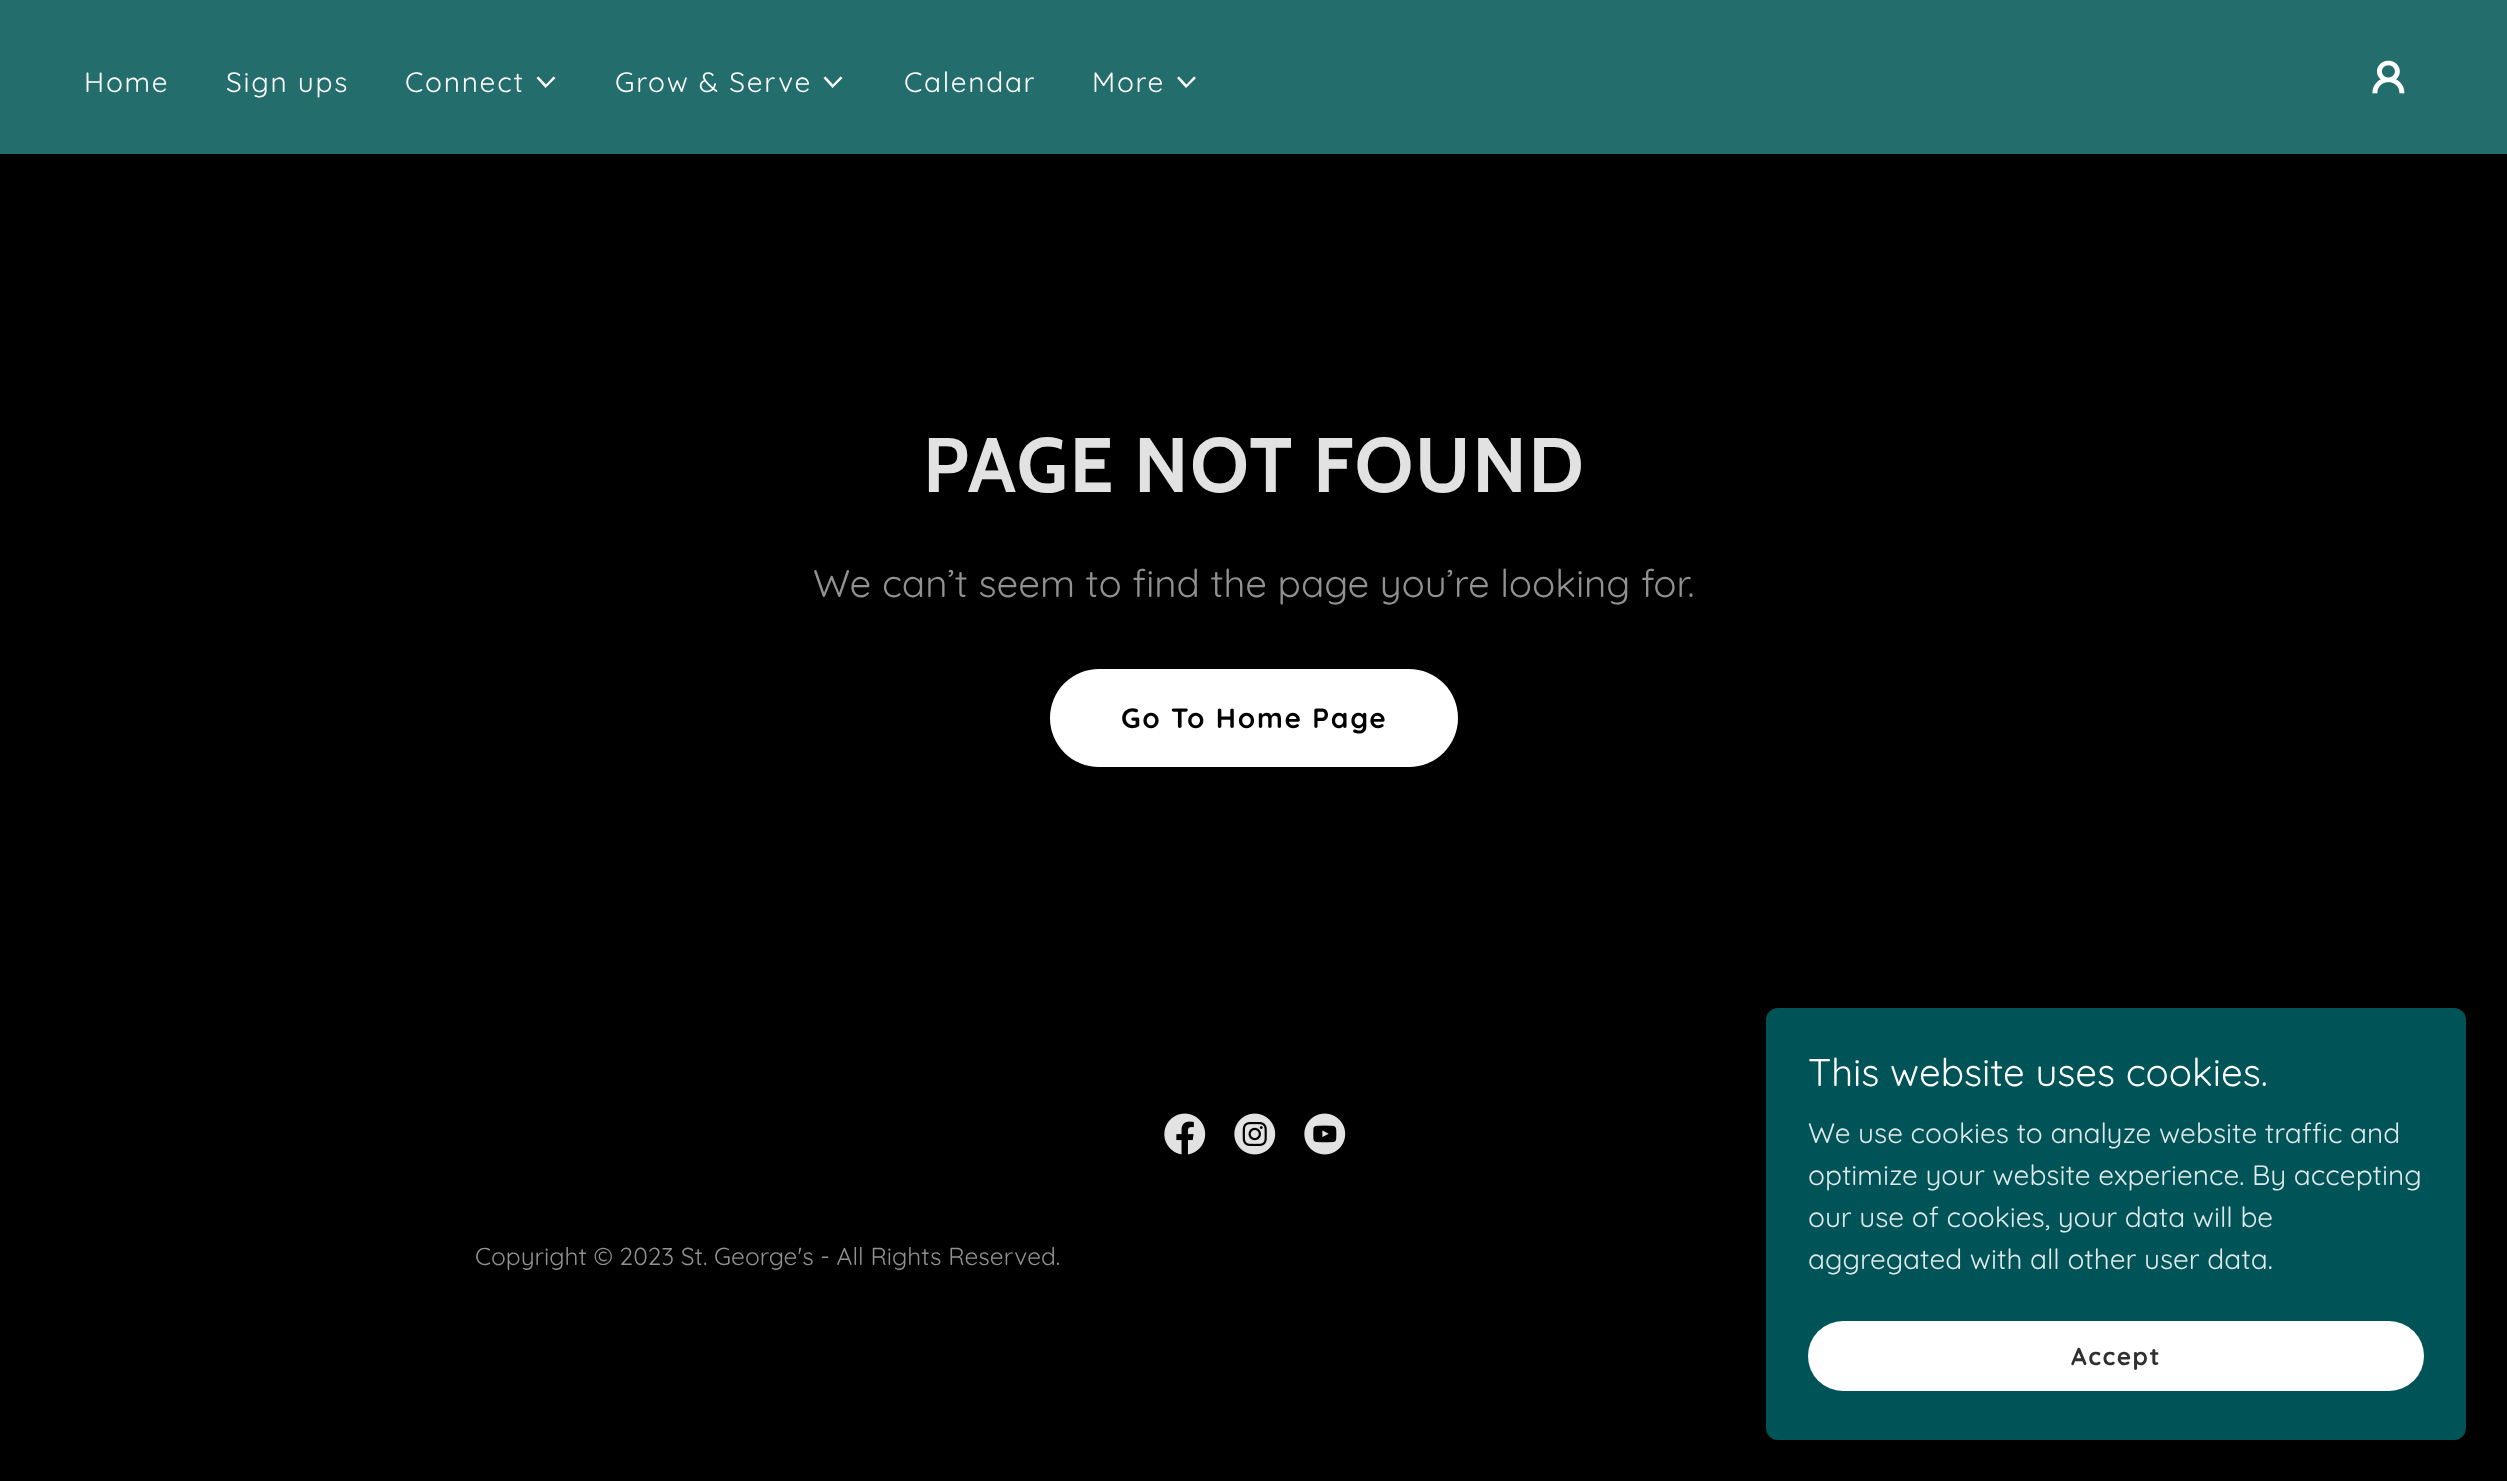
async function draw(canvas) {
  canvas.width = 2507;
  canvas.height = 1481;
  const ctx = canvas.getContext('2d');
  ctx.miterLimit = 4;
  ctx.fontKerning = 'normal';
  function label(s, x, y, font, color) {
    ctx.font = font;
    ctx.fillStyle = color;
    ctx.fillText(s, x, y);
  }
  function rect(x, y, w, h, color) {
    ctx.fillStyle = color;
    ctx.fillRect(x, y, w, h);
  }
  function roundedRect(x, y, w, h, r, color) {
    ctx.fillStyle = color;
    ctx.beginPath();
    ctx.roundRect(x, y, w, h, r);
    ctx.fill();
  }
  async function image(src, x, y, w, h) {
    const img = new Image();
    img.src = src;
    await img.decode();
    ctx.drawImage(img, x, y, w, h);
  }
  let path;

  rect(0, 0, 2507, 1481, '#000');
  rect(0, 0, 2507, 154, '#236d6d');
  ctx.letterSpacing = '1.75px';
  label('Home', 84, 92, '28px Quicksand', '#fff');
  label('Sign ups', 226, 92, '28px Quicksand', '#fff');
  label('Connect', 405, 92, '28px Quicksand', '#fff');
  path = new Path2D('M553.5 76.5L546 84.5L538.5 76.5L536.5 78L545.5 88L555.5 78Z');
  ctx.fill(path, 'evenodd');
  label('Grow & Serve', 615, 92, '28px Quicksand', '#fff');
  path = new Path2D('M840.5 76.5L833 84.5L825.5 76.5L823.5 78L832.5 88L842.5 78Z');
  ctx.fill(path, 'evenodd');
  label('Calendar', 904, 92, '28px Quicksand', '#fff');
  label('More', 1092, 92, '28px Quicksand', '#fff');
  path = new Path2D('M1194 76.5L1186.5 84.5L1179 76.5L1177 78L1186 88L1196 78Z');
  ctx.fill(path, 'evenodd');
  await image('assets/img1.png', 2372, 60, 33, 34);
  label('PAGE NOT FOUND', 923, 492, 'bold 77px Cabin', '#e2e2e2');
  ctx.letterSpacing = '0px';
  label('We can’t seem to find the page you’re looking for.', 813, 597, '38.5px Quicksand', '#919191');
  roundedRect(1050, 669, 408, 98, 49, '#fff');
  ctx.letterSpacing = '1.75px';
  label('Go To Home Page', 1121, 728, 'bold 28px Quicksand', '#000');
  await image('assets/img2.png', 1164, 1113, 42, 42);
  await image('assets/img3.png', 1234, 1113, 42, 42);
  await image('assets/img4.png', 1304, 1113, 42, 42);
  ctx.letterSpacing = '0px';
  label('Copyright © 2023 St. George\'s - All Rights Reserved.', 475, 1265, '24.5px Quicksand', '#919191');
  roundedRect(1766, 1008, 700, 432, 12, '#005357');
  label('This website uses cookies.', 1808, 1086, '38.5px Quicksand', '#fff');
  label('We use cookies to analyze website traffic and', 1808, 1143, '28px Quicksand', '#dfe9ea');
  label('optimize your website experience. By accepting', 1808, 1185, '28px Quicksand', '#dfe9ea');
  label('our use of cookies, your data will be', 1808, 1227, '28px Quicksand', '#dfe9ea');
  label('aggregated with all other user data.', 1808, 1269, '28px Quicksand', '#dfe9ea');
  roundedRect(1808, 1321, 616, 70, 35, '#fff');
  ctx.letterSpacing = '1.5px';
  label('Accept', 2071, 1365, 'bold 24.5px Quicksand', '#303030');
}

draw(document.querySelector('canvas'));
